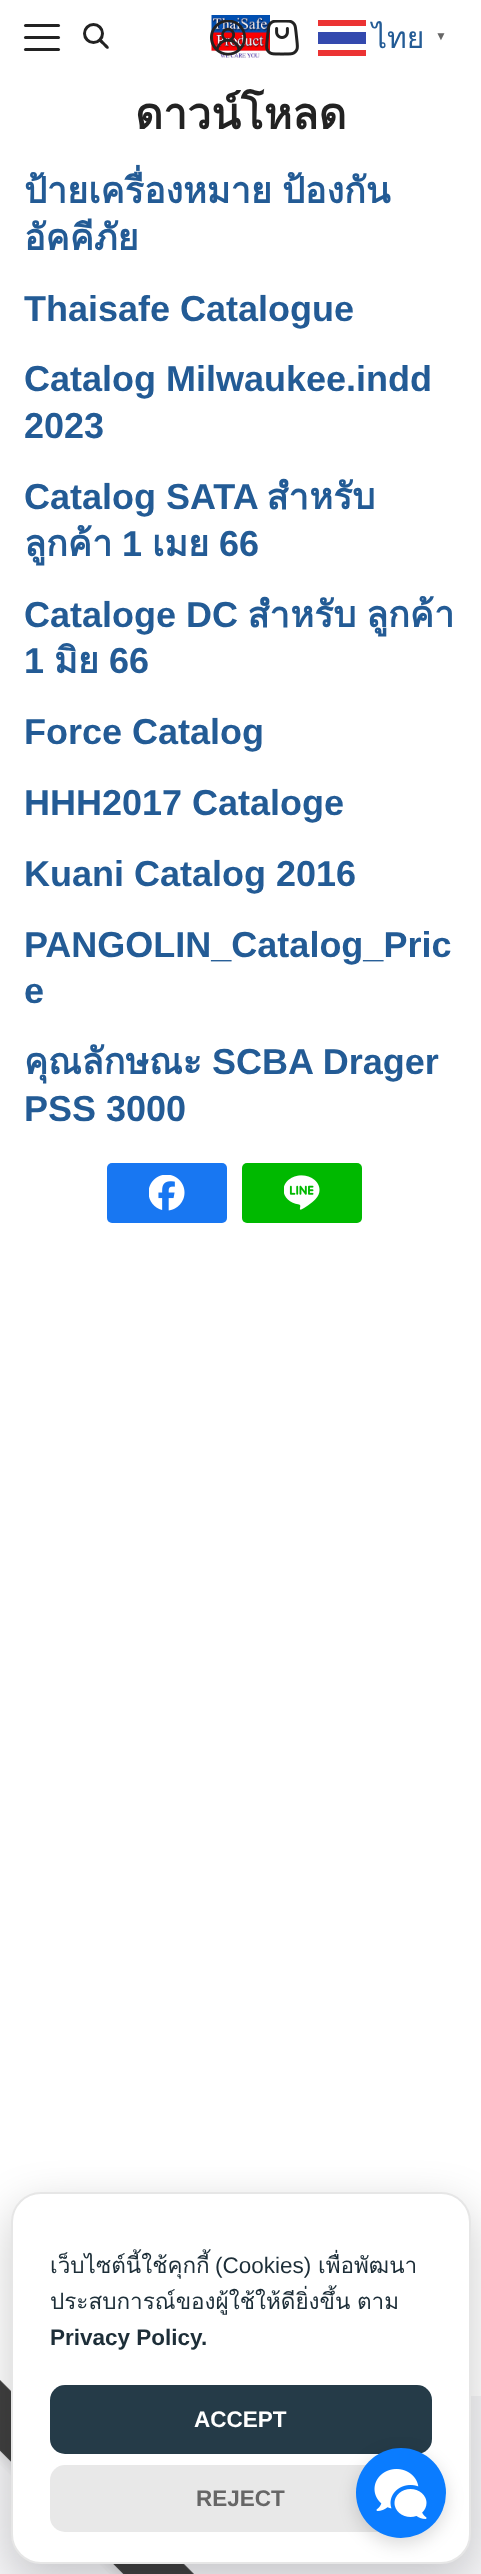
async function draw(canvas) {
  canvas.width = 481;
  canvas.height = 2574;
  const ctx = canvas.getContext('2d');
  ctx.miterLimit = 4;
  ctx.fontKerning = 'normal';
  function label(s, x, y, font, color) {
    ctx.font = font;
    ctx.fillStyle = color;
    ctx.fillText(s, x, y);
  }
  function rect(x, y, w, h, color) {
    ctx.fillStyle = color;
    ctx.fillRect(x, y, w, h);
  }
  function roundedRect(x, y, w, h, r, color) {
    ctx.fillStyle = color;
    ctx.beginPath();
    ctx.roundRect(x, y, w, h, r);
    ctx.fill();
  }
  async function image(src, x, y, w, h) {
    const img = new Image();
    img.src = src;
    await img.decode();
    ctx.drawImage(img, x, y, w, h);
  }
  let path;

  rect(0, 0, 481, 2574, '#fff');
  roundedRect(24, 36, 36, 3, 1.5, '#222');
  roundedRect(24, 24, 36, 3, 1.5, '#222');
  roundedRect(24, 48, 36, 3, 1.5, '#222');
  path = new Path2D('M99.5 39.5C101 37.5 104 42 105 43C106 44 110 46.5 108.5 48.5C106.5 50 104 46 103 45C102 44 97.5 41 99.5 39.5Z');
  ctx.fill(path);
  ctx.beginPath();
  ctx.arc(93.5, 33.5, 9, 0, 2 * Math.PI);
  ctx.strokeStyle = '#222';
  ctx.lineWidth = 3;
  ctx.stroke();
  await image('assets/img1.png', 211, 15, 59, 43);
  await image('assets/img2.png', 210, 20, 36, 36);
  await image('assets/img3.png', 265, 20, 34, 36);
  label('ไทย', 372, 48, '30px Loma', '#235b95');
  rect(318, 32, 48, 12, '#3349ae');
  ctx.fillStyle = '#ec3333';
  path = new Path2D('M318 20H366V26H318ZM318 50H366V56H318Z');
  ctx.fill(path, 'evenodd');
  label('▼', 435, 40, 'bold 12px Liberation Sans', '#666');
  label('ดาวน์โหลด', 135, 129, 'bold 43px Loma', '#222');
  ctx.wordSpacing = '-2px';
  label('ป้ายเครื่องหมาย ป้องกัน', 24, 203, 'bold 36px Loma', '#235b95');
  ctx.wordSpacing = '0px';
  label('อัคคีภัย', 24, 250, 'bold 36px Loma', '#235b95');
  label('Thaisafe Catalogue', 24, 321, 'bold 36px Liberation Sans', '#235b95');
  label('Catalog Milwaukee.indd', 24, 391, 'bold 36px Liberation Sans', '#235b95');
  label('2023', 24, 438, 'bold 36px Liberation Sans', '#235b95');
  label('Catalog SATA', 24, 509, 'bold 36px Liberation Sans', '#235b95');
  label('สำหรับ', 267, 509, 'bold 36px Loma', '#235b95');
  label('ลูกค้า', 24, 556, 'bold 36px Loma', '#235b95');
  label('1', 122, 556, 'bold 36px Liberation Sans', '#235b95');
  label('เมย', 152, 556, 'bold 36px Loma', '#235b95');
  label('66', 219, 556, 'bold 36px Liberation Sans', '#235b95');
  label('Cataloge DC', 24, 627, 'bold 36px Liberation Sans', '#235b95');
  label('สำหรับ', 248, 627, 'bold 36px Loma', '#235b95');
  label('ลูกค้า', 366, 627, 'bold 36px Loma', '#235b95');
  label('1', 24, 673, 'bold 36px Liberation Sans', '#235b95');
  label('มิย', 54, 673, 'bold 36px Loma', '#235b95');
  label('66', 109, 673, 'bold 36px Liberation Sans', '#235b95');
  label('Force Catalog', 24, 744, 'bold 36px Liberation Sans', '#235b95');
  label('HHH2017 Cataloge', 24, 815, 'bold 36px Liberation Sans', '#235b95');
  label('Kuani Catalog 2016', 24, 886, 'bold 36px Liberation Sans', '#235b95');
  label('PANGOLIN_Catalog_Pric', 24, 957, 'bold 36px Liberation Sans', '#235b95');
  label('e', 24, 1003, 'bold 36px Liberation Sans', '#235b95');
  label('คุณลักษณะ', 24, 1074, 'bold 36px Loma', '#235b95');
  label('SCBA Drager', 212, 1074, 'bold 36px Liberation Sans', '#235b95');
  label('PSS 3000', 24, 1121, 'bold 36px Liberation Sans', '#235b95');
  roundedRect(107, 1163, 120, 60, 5, '#1877f2');
  await image('assets/img4.png', 149, 1175, 36, 36);
  roundedRect(242, 1163, 120, 60, 5, '#00b900');
  await image('assets/img5.png', 284, 1175, 36, 35);
  rect(0, 2396, 481, 178, '#f5f5f7');
  await image('assets/img6.png', 0, 2380, 194, 194);
  ctx.fillStyle = '#02020333';
  ctx.filter = 'blur(22.5px)';
  ctx.beginPath();
  ctx.roundRect(11, 2207, 460, 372, 30);
  ctx.fill();
  ctx.filter = 'none';
  ctx.fillStyle = '#fff';
  ctx.beginPath();
  ctx.roundRect(12, 2193, 458, 370, 29);
  ctx.fill();
  ctx.strokeStyle = '#e6e6e6';
  ctx.lineWidth = 2;
  ctx.stroke();
  roundedRect(50, 2385, 382, 69, 15, '#253b48');
  roundedRect(50, 2465, 382, 67, 15, '#e8e8e8');
  ctx.fillStyle = '#00000026';
  ctx.filter = 'blur(9px)';
  ctx.beginPath();
  ctx.roundRect(356, 2454, 90, 90, 45);
  ctx.fill();
  ctx.filter = 'none';
  ctx.fillStyle = '#0a7cff';
  ctx.beginPath();
  ctx.arc(401, 2493, 45, 0, 2 * Math.PI);
  ctx.fill();
  await image('assets/img7.png', 374, 2469, 53, 50);
  label('เว็บไซต์นี้ใช้คุกกี้', 50, 2273, '22.5px Loma', '#1d2e38');
  label('(Cookies)', 215, 2273, '22.5px Liberation Sans', '#1d2e38');
  label('เพื่อพัฒนา', 318, 2273, '22.5px Loma', '#1d2e38');
  ctx.wordSpacing = '-1px';
  label('ประสบการณ์ของผู้ใช้ให้ดียิ่งขึ้น ตาม', 50, 2309, '22.5px Loma', '#1d2e38');
  ctx.wordSpacing = '0px';
  label('Privacy Policy.', 50, 2345, 'bold 22.5px Liberation Sans', '#1d2e38');
  label('ACCEPT', 194, 2427, 'bold 22.5px Liberation Sans', '#fff');
  label('REJECT', 196, 2506, 'bold 22.5px Liberation Sans', '#666');
}

draw(document.querySelector('canvas'));
